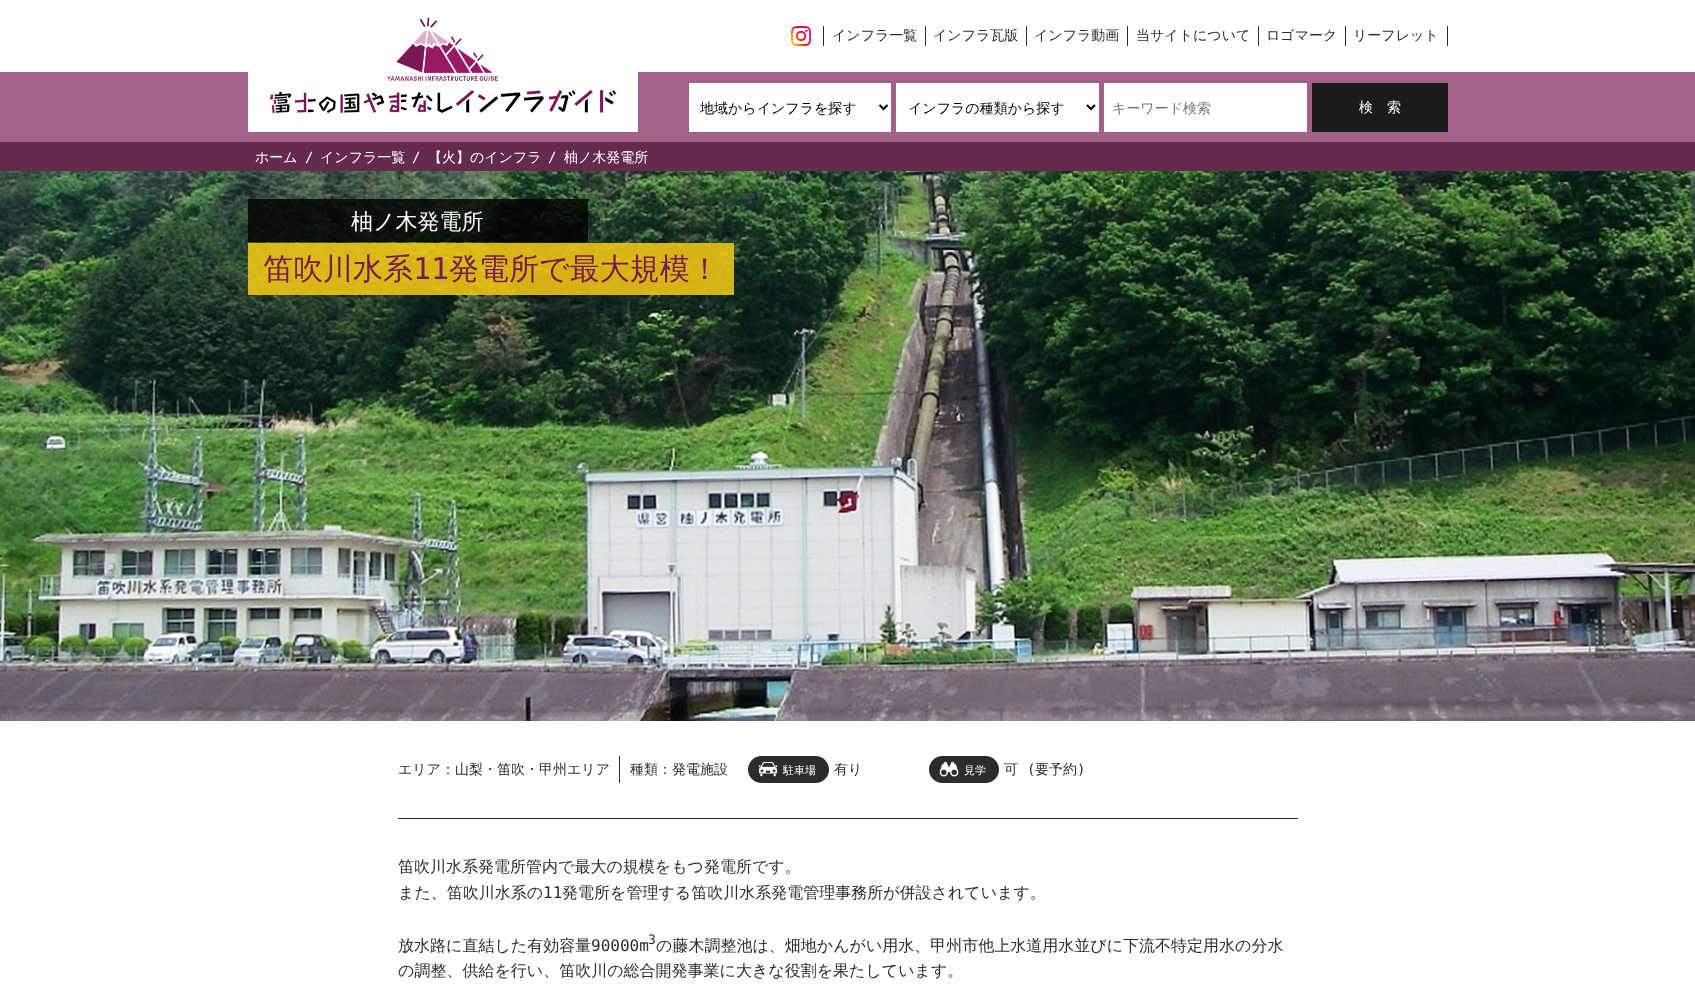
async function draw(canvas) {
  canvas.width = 1695;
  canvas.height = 996;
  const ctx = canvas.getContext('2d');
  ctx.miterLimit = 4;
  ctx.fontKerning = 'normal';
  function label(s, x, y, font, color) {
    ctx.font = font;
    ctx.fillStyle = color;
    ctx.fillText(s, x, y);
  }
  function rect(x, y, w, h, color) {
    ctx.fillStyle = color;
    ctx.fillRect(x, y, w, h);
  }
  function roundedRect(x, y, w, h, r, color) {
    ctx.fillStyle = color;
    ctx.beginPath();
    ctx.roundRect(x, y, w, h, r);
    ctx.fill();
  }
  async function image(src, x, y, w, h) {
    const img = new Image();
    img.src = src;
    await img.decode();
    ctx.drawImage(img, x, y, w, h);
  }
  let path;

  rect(0, 0, 1695, 996, '#642b4c');
  rect(0, 0, 1695, 72, '#fff');
  rect(0, 72, 1695, 70, '#a26287');
  rect(248, 72, 390, 60, '#fff');
  await image('assets/img1.png', 269, 17, 348, 97);
  await image('assets/img2.png', 790, 26, 21, 20);
  rect(823, 26, 1, 20, '#2c2c2c');
  label('インフラ一覧', 832, 40, '500 14px WenQuanYi Zen Hei', '#2c2c2c');
  rect(925, 26, 1, 20, '#2c2c2c');
  label('インフラ瓦版', 933, 40, '500 14px WenQuanYi Zen Hei', '#2c2c2c');
  rect(1026, 26, 1, 20, '#2c2c2c');
  label('インフラ動画', 1034, 40, '500 14px WenQuanYi Zen Hei', '#2c2c2c');
  rect(1127, 26, 1, 20, '#2c2c2c');
  label('当サイトについて', 1136, 40, '500 14px WenQuanYi Zen Hei', '#2c2c2c');
  rect(1258, 26, 1, 20, '#2c2c2c');
  label('ロゴマーク', 1266, 40, '500 14px WenQuanYi Zen Hei', '#2c2c2c');
  rect(1447, 26, 1, 20, '#2c2c2c');
  rect(1345, 26, 1, 20, '#2c2c2c');
  label('リーフレット', 1353, 40, '500 14px WenQuanYi Zen Hei', '#2c2c2c');
  rect(689, 83, 202, 49, '#fff');
  path = new Path2D('M879.5 105L883.5 109L887.5 105');
  ctx.strokeStyle = '#000';
  ctx.lineWidth = 2;
  ctx.stroke(path);
  label('地域からインフラを探す', 700, 113, '500 14px WenQuanYi Zen Hei', '#000');
  rect(896, 83, 203, 49, '#fff');
  path = new Path2D('M1087 105L1091 109L1095 105');
  ctx.stroke(path);
  label('インフラの種類から探す', 908, 113, '500 14px WenQuanYi Zen Hei', '#000');
  rect(1104, 83, 203, 49, '#fff');
  label('キーワード検索', 1112, 113, '500 14px WenQuanYi Zen Hei', '#757575');
  rect(1312, 83, 136, 49, '#1b1b1b');
  label('検　索', 1359, 112, '500 14px WenQuanYi Zen Hei', '#fff');
  label('ホーム', 255, 162, '500 14px WenQuanYi Zen Hei', '#fff');
  label('/', 305, 162, '14px DejaVu Sans Mono', '#fff');
  label('インフラ一覧', 320, 162, '500 14px WenQuanYi Zen Hei', '#fff');
  label('/', 412, 162, '14px DejaVu Sans Mono', '#fff');
  label('【火】のインフラ', 428, 162, '500 14px WenQuanYi Zen Hei', '#fff');
  label('/', 548, 162, '14px DejaVu Sans Mono', '#fff');
  label('柚ノ木発電所', 564, 162, '500 14px WenQuanYi Zen Hei', '#fff');
  rect(0, 721, 1695, 275, '#fff');
  await image('assets/img3.png', 0, 171, 1695, 550);
  rect(248, 199, 340, 43, '#000000cc');
  label('柚ノ木発電所', 351, 229, '500 22px WenQuanYi Zen Hei', '#fff');
  rect(248, 243, 486, 52, '#f8cc13d9');
  label('笛吹川水系', 263, 279, '500 30px WenQuanYi Zen Hei', '#7a1755');
  label('11', 413, 279, '30px DejaVu Sans Mono', '#7a1755');
  label('発電所で最大規模！', 449, 279, '500 30px WenQuanYi Zen Hei', '#7a1755');
  rect(398, 818, 900, 1, '#2c2c2c');
  label('エリア：山梨・笛吹・甲州エリア', 398, 774, '500 14px WenQuanYi Zen Hei', '#2c2c2c');
  rect(619, 756, 1, 27, '#2c2c2c');
  label('種類：発電施設', 630, 774, '500 14px WenQuanYi Zen Hei', '#2c2c2c');
  roundedRect(748, 756, 81, 27, 13.5, '#2c2c2c');
  await image('assets/img4.png', 758, 761, 20, 16);
  label('駐車場', 783, 774, '500 11px WenQuanYi Zen Hei', '#fff');
  label('有り', 834, 774, '500 14px WenQuanYi Zen Hei', '#2c2c2c');
  roundedRect(929, 756, 70, 27, 13.5, '#2c2c2c');
  await image('assets/img5.png', 939, 761, 20, 16);
  label('見学', 964, 774, '500 11px WenQuanYi Zen Hei', '#fff');
  label('可', 1004, 774, '500 14px WenQuanYi Zen Hei', '#2c2c2c');
  label('(', 1027, 774, '14px DejaVu Sans Mono', '#2c2c2c');
  label('要予約', 1035, 774, '500 14px WenQuanYi Zen Hei', '#2c2c2c');
  label(')', 1077, 774, '14px DejaVu Sans Mono', '#2c2c2c');
  label('笛吹川水系発電所管内で最大の規模をもつ発電所です。', 398, 872, '500 16px WenQuanYi Zen Hei', '#2c2c2c');
  label('また、笛吹川水系の', 398, 898, '500 16px WenQuanYi Zen Hei', '#2c2c2c');
  label('11', 543, 898, '16px DejaVu Sans Mono', '#2c2c2c');
  label('発電所を管理する笛吹川水系発電管理事務所が併設されています。', 562, 898, '500 16px WenQuanYi Zen Hei', '#2c2c2c');
  label('放水路に直結した有効容量', 398, 951, '500 16px WenQuanYi Zen Hei', '#2c2c2c');
  label('90000m', 591, 951, '16px DejaVu Sans Mono', '#2c2c2c');
  label('3', 648, 944, '13px DejaVu Sans Mono', '#2c2c2c');
  label('の藤木調整池は、畑地かんがい用水、甲州市他上水道用水並びに下流不特定用水の分水', 656, 951, '500 16px WenQuanYi Zen Hei', '#2c2c2c');
  label('の調整、供給を行い、笛吹川の総合開発事業に大きな役割を果たしています。', 398, 976, '500 16px WenQuanYi Zen Hei', '#2c2c2c');
}

draw(document.querySelector('canvas'));
